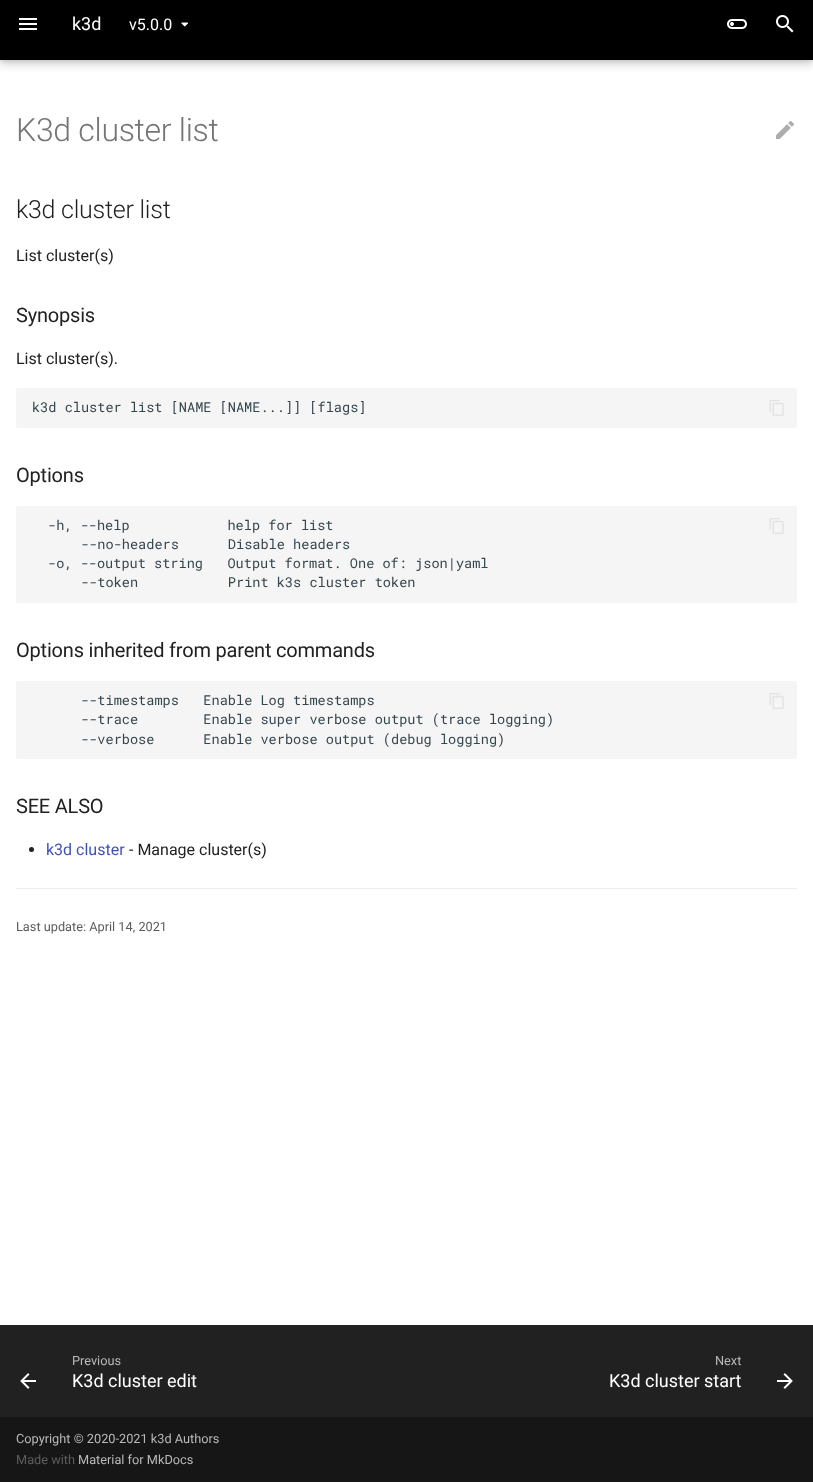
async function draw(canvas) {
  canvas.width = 813;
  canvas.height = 1482;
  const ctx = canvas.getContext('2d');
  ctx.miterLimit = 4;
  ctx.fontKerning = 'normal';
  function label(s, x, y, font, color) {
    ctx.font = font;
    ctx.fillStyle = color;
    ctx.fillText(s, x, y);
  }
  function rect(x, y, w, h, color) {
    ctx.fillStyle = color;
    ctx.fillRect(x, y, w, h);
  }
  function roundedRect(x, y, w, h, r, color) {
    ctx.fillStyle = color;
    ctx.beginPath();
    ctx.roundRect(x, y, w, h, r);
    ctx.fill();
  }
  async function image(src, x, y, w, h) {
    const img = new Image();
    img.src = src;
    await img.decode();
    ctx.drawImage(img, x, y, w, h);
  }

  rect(0, 0, 813, 1482, '#fff');
  ctx.fillStyle = '#00000033';
  ctx.filter = 'blur(4px)';
  ctx.beginPath();
  ctx.rect(0, 4, 813, 60);
  ctx.fill();
  ctx.filter = 'none';
  ctx.fillStyle = '#0000001a';
  ctx.filter = 'blur(2px)';
  ctx.beginPath();
  ctx.rect(0, 0, 813, 60);
  ctx.fill();
  ctx.filter = 'none';
  rect(0, 0, 813, 60, '#000');
  await image('assets/img1.png', 19, 18, 18, 12);
  label('k3d', 72, 30, '18px Roboto', '#fff');
  label('v5.0.0', 129, 30, '16px Roboto', '#fff');
  await image('assets/img2.png', 181, 22, 7, 5);
  await image('assets/img3.png', 727, 19, 20, 10);
  await image('assets/img4.png', 776, 15, 18, 18);
  ctx.letterSpacing = '-0.3px';
  label('K3d cluster list', 16, 141, '300 32px Roboto', '#757575');
  await image('assets/img5.png', 776, 121, 18, 18);
  ctx.letterSpacing = '-0.25px';
  label('k3d cluster list', 16, 218, '300 25px Roboto', '#212121');
  ctx.letterSpacing = '0px';
  label('List cluster(s)', 16, 261, '16px Roboto', '#212121');
  ctx.letterSpacing = '-0.2px';
  label('Synopsis', 16, 322, '20px Roboto', '#212121');
  ctx.letterSpacing = '0px';
  label('List cluster(s).', 16, 364, '16px Roboto', '#212121');
  roundedRect(16, 388, 781, 40, 2, '#f5f5f5');
  label('k3d cluster list [NAME [NAME...]] [flags]', 32, 412, '13.6px Roboto Mono', '#36464e');
  await image('assets/img6.png', 769, 400, 15, 16);
  ctx.letterSpacing = '-0.2px';
  label('Options', 16, 482, '20px Roboto', '#212121');
  roundedRect(16, 506, 781, 97, 2, '#f5f5f5');
  ctx.letterSpacing = '0px';
  label('-h, --help            help for list', 48, 530, '13.6px Roboto Mono', '#36464e');
  label('--no-headers      Disable headers', 81, 549, '13.6px Roboto Mono', '#36464e');
  label('-o, --output string   Output format. One of: json|yaml', 48, 568, '13.6px Roboto Mono', '#36464e');
  label('--token           Print k3s cluster token', 81, 587, '13.6px Roboto Mono', '#36464e');
  await image('assets/img6.png', 769, 518, 15, 16);
  ctx.letterSpacing = '-0.2px';
  label('Options inherited from parent commands', 16, 657, '20px Roboto', '#212121');
  roundedRect(16, 681, 781, 78, 2, '#f5f5f5');
  ctx.letterSpacing = '0px';
  label('--timestamps   Enable Log timestamps', 81, 705, '13.6px Roboto Mono', '#36464e');
  label('--trace        Enable super verbose output (trace logging)', 81, 724, '13.6px Roboto Mono', '#36464e');
  label('--verbose      Enable verbose output (debug logging)', 81, 744, '13.6px Roboto Mono', '#36464e');
  await image('assets/img6.png', 769, 693, 15, 16);
  ctx.letterSpacing = '-0.2px';
  label('SEE ALSO', 16, 813, '20px Roboto', '#212121');
  ctx.beginPath();
  ctx.arc(31.5, 849.5, 2.5, 0, 2 * Math.PI);
  ctx.fill();
  ctx.letterSpacing = '0px';
  label('k3d cluster', 46, 855, '16px Roboto', '#4051b5');
  label('- Manage cluster(s)', 129, 855, '16px Roboto', '#212121');
  rect(16, 888, 781, 1, '#ededed');
  label('Last update: April 14, 2021', 16, 931, '12.75px Roboto', '#5c5c5c');
  rect(0, 1325, 813, 92, '#212121');
  await image('assets/img7.png', 20, 1373, 16, 16);
  label('Previous', 72, 1365, '12.75px Roboto', '#b9b9b9');
  label('K3d cluster edit', 72, 1387, '18px Roboto', '#fff');
  label('Next', 715, 1365, '12.75px Roboto', '#b9b9b9');
  label('K3d cluster start', 609, 1387, '18px Roboto', '#fff');
  await image('assets/img8.png', 777, 1373, 16, 16);
  rect(0, 1417, 813, 65, '#161616');
  label('Copyright © 2020-2021 k3d Authors', 16, 1443, '12.75px Roboto', '#b9b9b9');
  label('Made with', 16, 1464, '12.75px Roboto', '#5c5c5c');
  label('Material for MkDocs', 78, 1464, '12.75px Roboto', '#b9b9b9');
}

draw(document.querySelector('canvas'));
